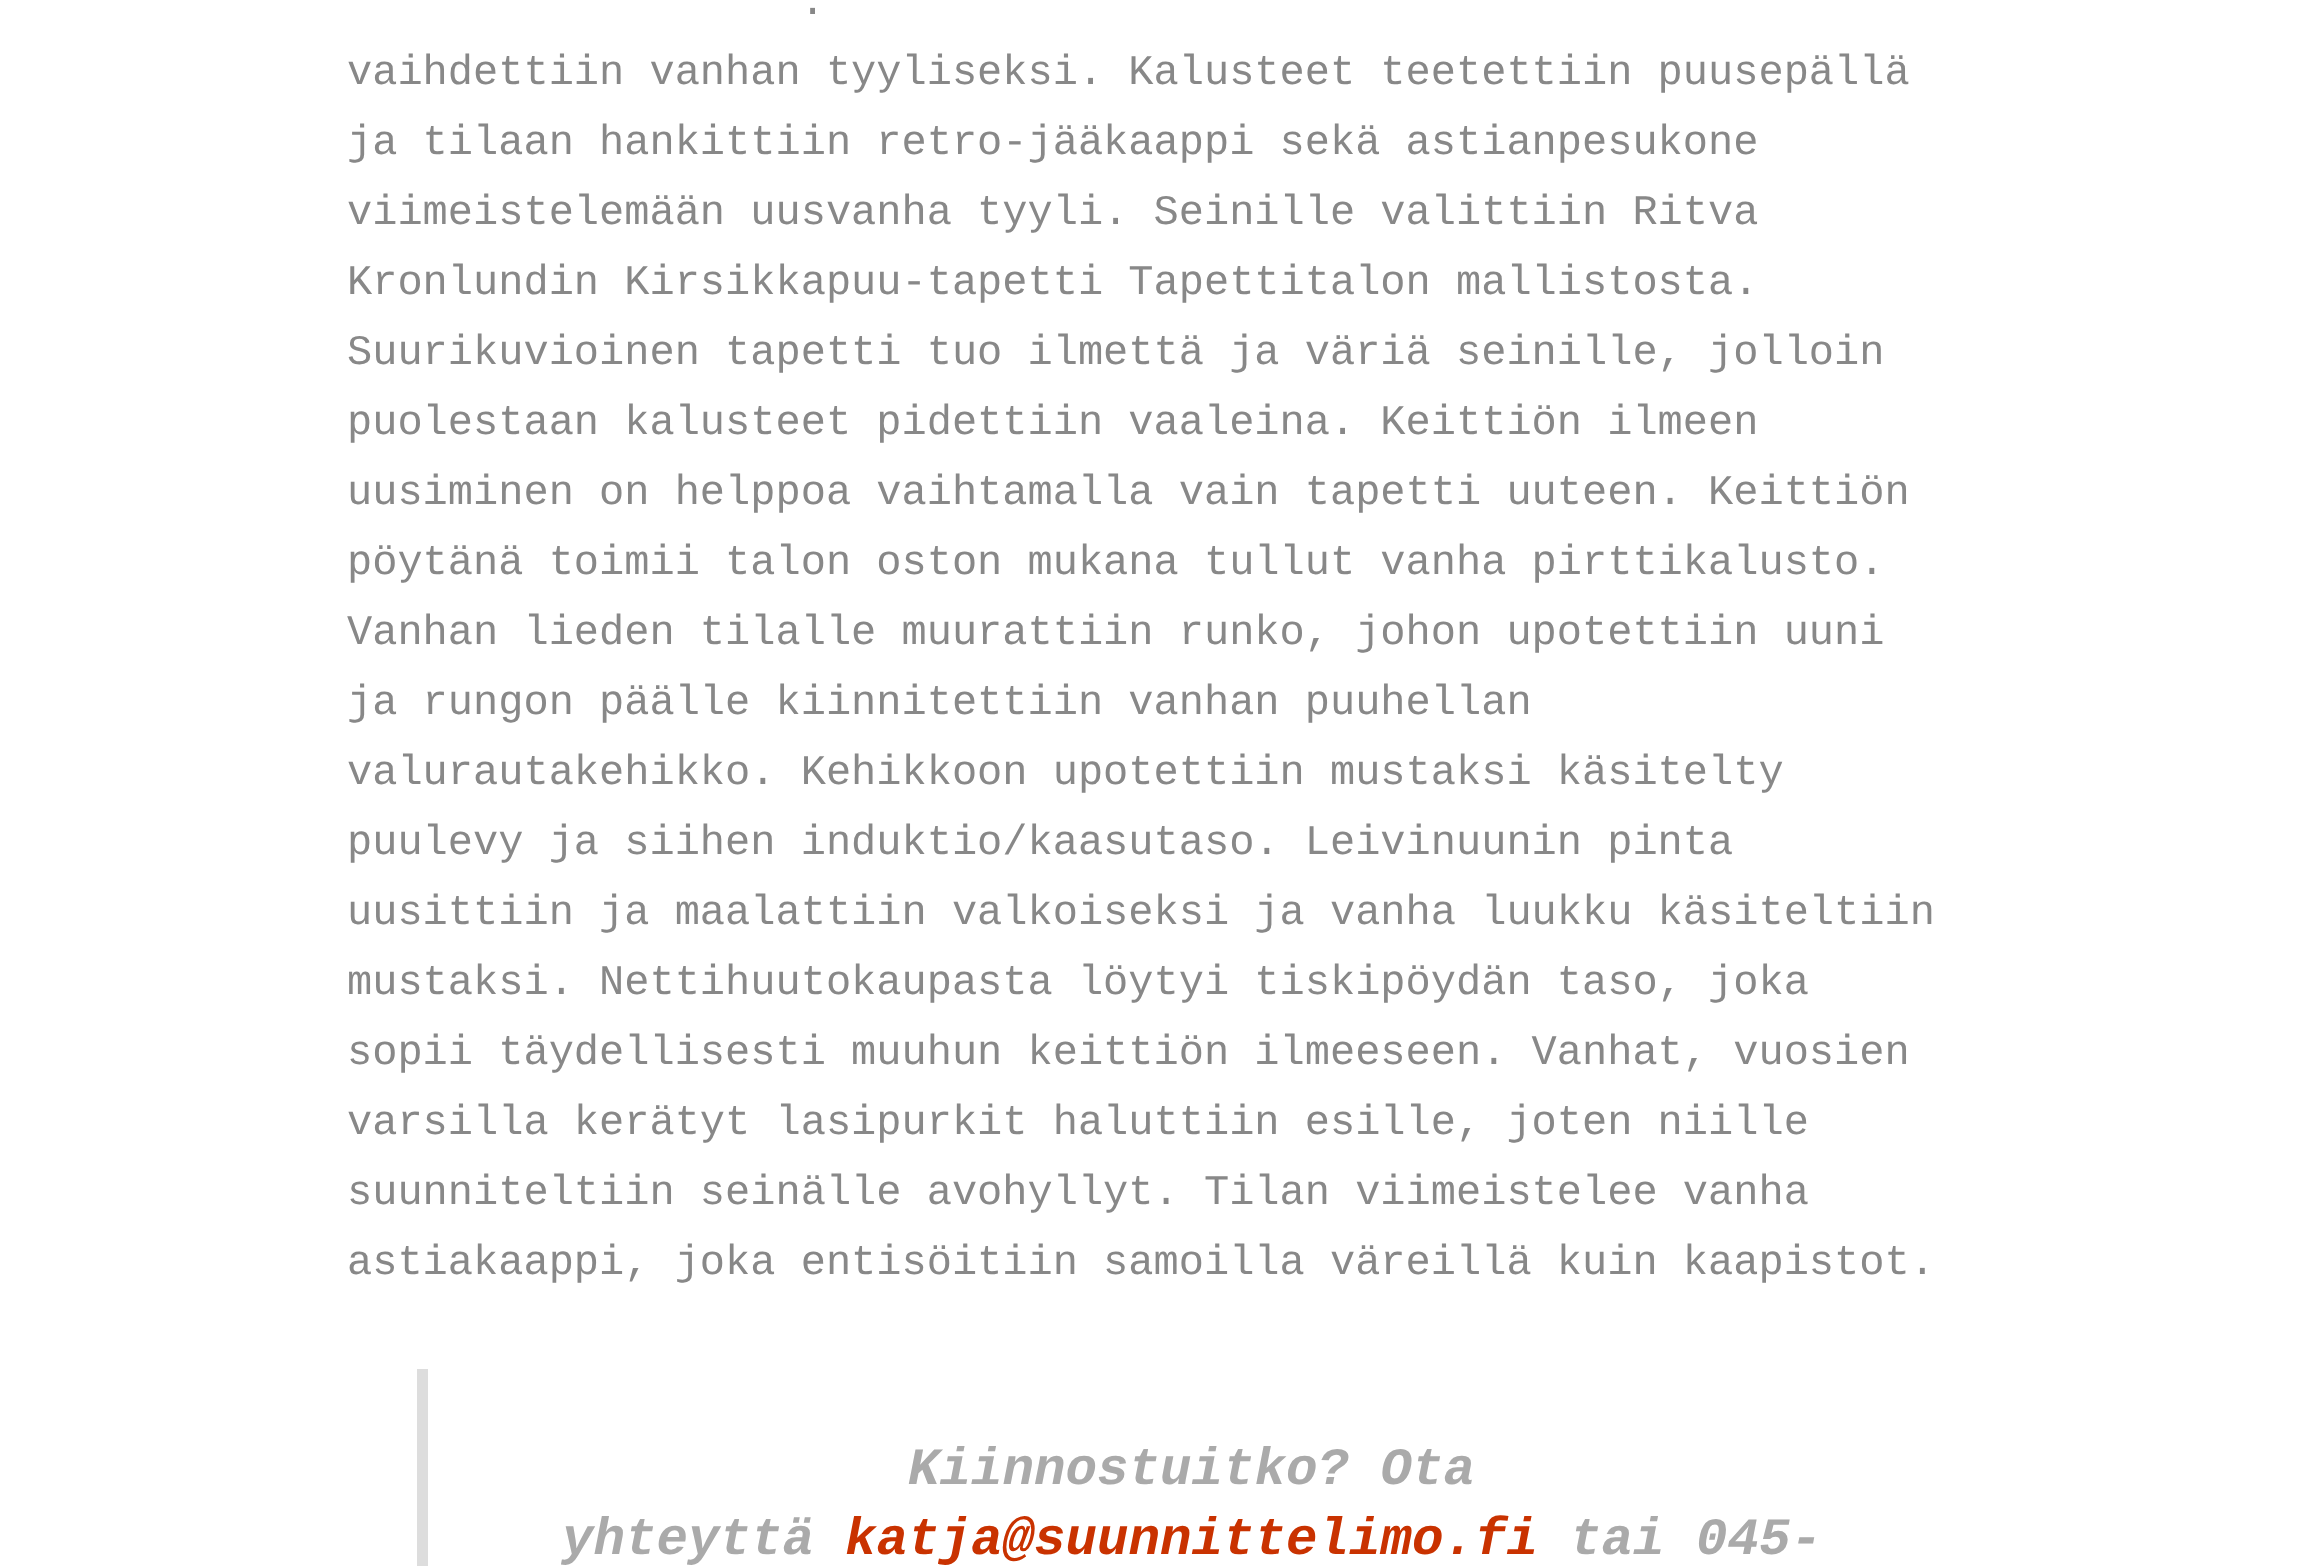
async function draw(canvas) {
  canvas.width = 2300;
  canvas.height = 1566;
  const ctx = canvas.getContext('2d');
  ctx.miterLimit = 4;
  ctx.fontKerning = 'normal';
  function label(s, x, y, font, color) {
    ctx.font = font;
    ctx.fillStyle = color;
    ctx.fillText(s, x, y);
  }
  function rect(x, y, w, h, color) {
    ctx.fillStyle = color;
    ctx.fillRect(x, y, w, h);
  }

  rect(0, 0, 2300, 1566, '#fff');
  label('.', 800, 14, '42px Liberation Mono', '#888');
  label('vaihdettiin vanhan tyyliseksi. Kalusteet teetettiin puusepällä', 347, 84, '42px Liberation Mono', '#888');
  label('ja tilaan hankittiin retro-jääkaappi sekä astianpesukone', 347, 154, '42px Liberation Mono', '#888');
  label('viimeistelemään uusvanha tyyli. Seinille valittiin Ritva', 347, 224, '42px Liberation Mono', '#888');
  label('Kronlundin Kirsikkapuu-tapetti Tapettitalon mallistosta.', 347, 294, '42px Liberation Mono', '#888');
  label('Suurikuvioinen tapetti tuo ilmettä ja väriä seinille, jolloin', 347, 364, '42px Liberation Mono', '#888');
  label('puolestaan kalusteet pidettiin vaaleina. Keittiön ilmeen', 347, 434, '42px Liberation Mono', '#888');
  label('uusiminen on helppoa vaihtamalla vain tapetti uuteen. Keittiön', 347, 504, '42px Liberation Mono', '#888');
  label('pöytänä toimii talon oston mukana tullut vanha pirttikalusto.', 347, 574, '42px Liberation Mono', '#888');
  label('Vanhan lieden tilalle muurattiin runko, johon upotettiin uuni', 347, 644, '42px Liberation Mono', '#888');
  label('ja rungon päälle kiinnitettiin vanhan puuhellan', 347, 714, '42px Liberation Mono', '#888');
  label('valurautakehikko. Kehikkoon upotettiin mustaksi käsitelty', 347, 784, '42px Liberation Mono', '#888');
  label('puulevy ja siihen induktio/kaasutaso. Leivinuunin pinta', 347, 854, '42px Liberation Mono', '#888');
  label('uusittiin ja maalattiin valkoiseksi ja vanha luukku käsiteltiin', 347, 924, '42px Liberation Mono', '#888');
  label('mustaksi. Nettihuutokaupasta löytyi tiskipöydän taso, joka', 347, 994, '42px Liberation Mono', '#888');
  label('sopii täydellisesti muuhun keittiön ilmeeseen. Vanhat, vuosien', 347, 1064, '42px Liberation Mono', '#888');
  label('varsilla kerätyt lasipurkit haluttiin esille, joten niille', 347, 1134, '42px Liberation Mono', '#888');
  label('suunniteltiin seinälle avohyllyt. Tilan viimeistelee vanha', 347, 1204, '42px Liberation Mono', '#888');
  label('astiakaappi, joka entisöitiin samoilla väreillä kuin kaapistot.', 347, 1274, '42px Liberation Mono', '#888');
  rect(417, 1369, 11, 197, '#ddd');
  label('Kiinnostuitko? Ota', 908, 1484, 'italic bold 52.5px Liberation Mono', '#aaa');
  label('yhteyttä', 562, 1554, 'italic bold 52.5px Liberation Mono', '#aaa');
  label('katja@suunnittelimo.fi', 845, 1554, 'italic bold 52.5px Liberation Mono', '#c93200');
  label('tai 045-', 1570, 1554, 'italic bold 52.5px Liberation Mono', '#aaa');
}

draw(document.querySelector('canvas'));
